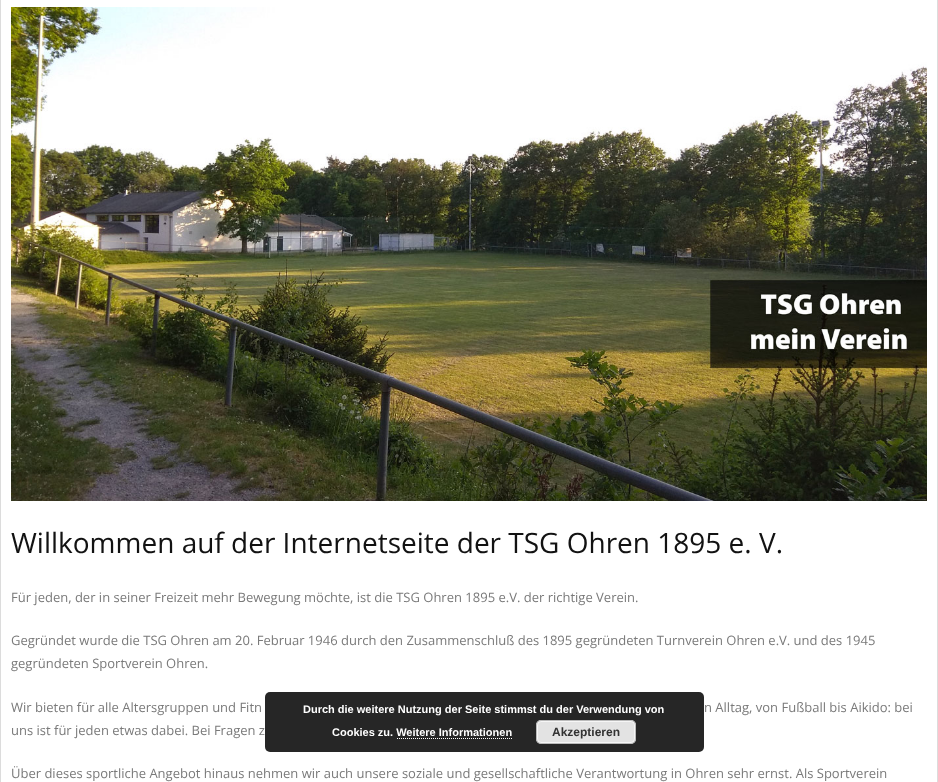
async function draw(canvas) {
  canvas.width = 938;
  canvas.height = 782;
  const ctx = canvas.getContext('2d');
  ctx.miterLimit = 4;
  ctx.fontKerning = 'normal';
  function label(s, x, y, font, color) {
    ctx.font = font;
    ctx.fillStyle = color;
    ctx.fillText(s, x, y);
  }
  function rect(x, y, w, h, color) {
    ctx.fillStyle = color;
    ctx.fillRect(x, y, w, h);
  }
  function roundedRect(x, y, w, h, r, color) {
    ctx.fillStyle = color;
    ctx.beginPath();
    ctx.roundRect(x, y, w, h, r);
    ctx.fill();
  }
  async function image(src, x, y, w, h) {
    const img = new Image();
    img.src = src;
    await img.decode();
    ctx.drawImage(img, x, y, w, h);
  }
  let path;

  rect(0, 0, 938, 782, '#fff');
  ctx.strokeStyle = '#dcdcdc';
  ctx.strokeRect(0.5, -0.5, 937, 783);
  await image('assets/img1.png', 11, 7, 916, 494);
  label('Willkommen auf der Internetseite der TSG Ohren 1895 e. V.', 11, 553, '28px Open Sans', '#121212');
  label('Für jeden, der in seiner Freizeit mehr Bewegung möchte, ist die TSG Ohren 1895 e.V. der richtige Verein.', 11, 602, '13px Open Sans', '#7a7a7a');
  label('Gegründet wurde die TSG Ohren am 20. Februar 1946 durch den Zusammenschluß des 1895 gegründeten Turnverein Ohren e.V. und des 1945', 11, 645, '13px Open Sans', '#7a7a7a');
  label('gegründeten Sportverein Ohren.', 11, 668, '13px Open Sans', '#7a7a7a');
  label('Wir bieten für alle Altersgruppen und Fitn', 11, 712, '13px Open Sans', '#7a7a7a');
  label('n Alltag, von Fußball bis Aikido: bei', 704, 712, '13px Open Sans', '#7a7a7a');
  label('uns ist für jeden etwas dabei. Bei Fragen z', 11, 735, '13px Open Sans', '#7a7a7a');
  label('Über dieses sportliche Angebot hinaus nehmen wir auch unsere soziale und gesellschaftliche Verantwortung in Ohren sehr ernst. Als Sportverein', 11, 778, '13px Open Sans', '#7a7a7a');
  roundedRect(265, 692, 439, 60, 5, '#000000d9');
  label('Durch die weitere Nutzung der Seite stimmst du der Verwendung von', 303, 713, 'bold 11px Liberation Sans', '#fff');
  label('Cookies zu. Weitere Informationen', 332, 736, 'bold 11px Liberation Sans', '#fff');
  roundedRect(536, 720, 100, 24, 5, '#e3e3e3');
  ctx.beginPath();
  ctx.roundRect(537.5, 721.5, 97, 21, 3.5);
  ctx.strokeStyle = '#f6f6f6';
  ctx.stroke();
  ctx.beginPath();
  ctx.roundRect(536.5, 720.5, 99, 23, 4.5);
  ctx.strokeStyle = '#bbb';
  ctx.stroke();
  label('Akzeptieren', 552, 736, 'bold 12px Liberation Sans', '#333');
  path = new Path2D('M397 738.5H513');
  ctx.strokeStyle = '#fff';
  ctx.setLineDash([1, 1]);
  ctx.stroke(path);
}

draw(document.querySelector('canvas'));
